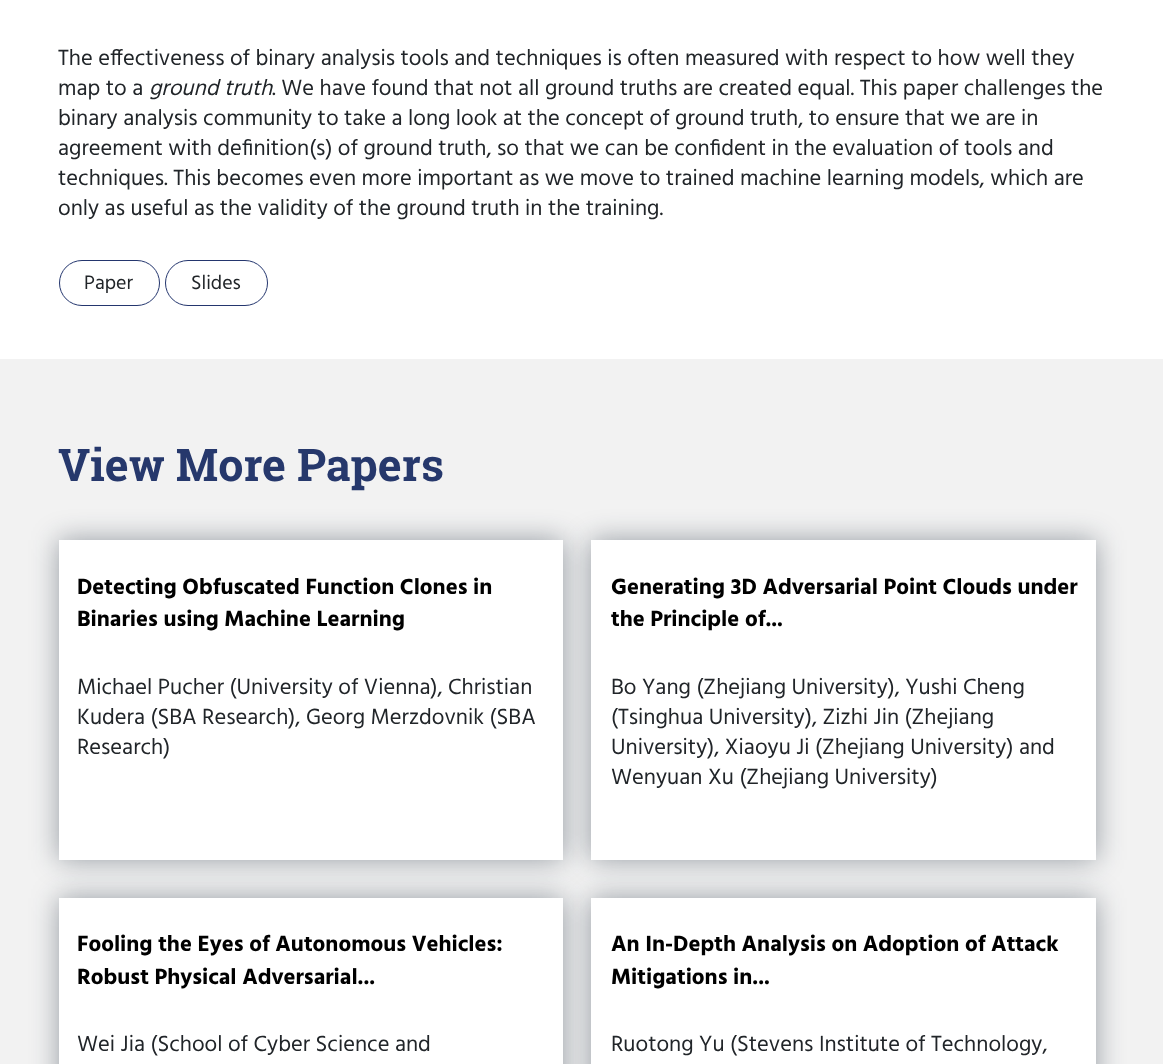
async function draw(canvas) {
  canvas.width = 1163;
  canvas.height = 1064;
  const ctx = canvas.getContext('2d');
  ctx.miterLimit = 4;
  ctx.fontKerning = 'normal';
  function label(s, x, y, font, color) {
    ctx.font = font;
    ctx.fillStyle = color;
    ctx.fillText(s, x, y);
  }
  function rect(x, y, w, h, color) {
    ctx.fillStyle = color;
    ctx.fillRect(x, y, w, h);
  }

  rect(0, 0, 1163, 1064, '#fff');
  label('The effectiveness of binary analysis tools and techniques is often measured with respect to how well they', 58, 65, '22.5px Hind', '#212529');
  label('map to a', 58, 95, '22.5px Hind', '#212529');
  label('ground truth', 149, 95, 'italic 22.5px Hind', '#212529');
  label('. We have found that not all ground truths are created equal. This paper challenges the', 272, 95, '22.5px Hind', '#212529');
  label('binary analysis community to take a long look at the concept of ground truth, to ensure that we are in', 58, 125, '22.5px Hind', '#212529');
  label('agreement with definition(s) of ground truth, so that we can be confident in the evaluation of tools and', 58, 155, '22.5px Hind', '#212529');
  label('techniques. This becomes even more important as we move to trained machine learning models, which are', 58, 185, '22.5px Hind', '#212529');
  label('only as useful as the validity of the ground truth in the training.', 58, 215, '22.5px Hind', '#212529');
  ctx.beginPath();
  ctx.roundRect(59.5, 260.5, 100, 45, 22.5);
  ctx.strokeStyle = '#24366e';
  ctx.stroke();
  label('Paper', 84, 289, '20px Hind', '#212529');
  ctx.beginPath();
  ctx.roundRect(165.5, 260.5, 102, 45, 22.5);
  ctx.stroke();
  label('Slides', 191, 289, '20px Hind', '#212529');
  rect(0, 359, 1163, 705, '#f2f2f2');
  label('View More Papers', 58, 481, 'bold 45px Roboto Slab', '#26386c');
  ctx.fillStyle = '#0c1c2c66';
  ctx.filter = 'blur(14px)';
  ctx.beginPath();
  ctx.rect(59, 540, 504, 320);
  ctx.fill();
  ctx.filter = 'none';
  rect(59, 540, 504, 320, '#fff');
  label('Detecting Obfuscated Function Clones in', 77, 594, 'bold 22.5px Hind', '#000');
  label('Binaries using Machine Learning', 77, 626, 'bold 22.5px Hind', '#000');
  label('Michael Pucher (University of Vienna), Christian', 77, 694, '22.5px Hind', '#212529');
  label('Kudera (SBA Research), Georg Merzdovnik (SBA', 77, 724, '22.5px Hind', '#212529');
  label('Research)', 77, 754, '22.5px Hind', '#212529');
  ctx.fillStyle = '#0c1c2c66';
  ctx.filter = 'blur(14px)';
  ctx.beginPath();
  ctx.rect(591, 540, 505, 320);
  ctx.fill();
  ctx.filter = 'none';
  rect(591, 540, 505, 320, '#fff');
  label('Generating 3D Adversarial Point Clouds under', 611, 594, 'bold 22.5px Hind', '#000');
  label('the Principle of...', 611, 626, 'bold 22.5px Hind', '#000');
  label('Bo Yang (Zhejiang University), Yushi Cheng', 611, 694, '22.5px Hind', '#212529');
  label('(Tsinghua University), Zizhi Jin (Zhejiang', 611, 724, '22.5px Hind', '#212529');
  label('University), Xiaoyu Ji (Zhejiang University) and', 611, 754, '22.5px Hind', '#212529');
  label('Wenyuan Xu (Zhejiang University)', 611, 784, '22.5px Hind', '#212529');
  ctx.fillStyle = '#0c1c2c66';
  ctx.filter = 'blur(14px)';
  ctx.beginPath();
  ctx.rect(59, 898, 504, 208);
  ctx.fill();
  ctx.filter = 'none';
  rect(59, 898, 504, 166, '#fff');
  label('Fooling the Eyes of Autonomous Vehicles:', 77, 951, 'bold 22.5px Hind', '#000');
  label('Robust Physical Adversarial...', 77, 984, 'bold 22.5px Hind', '#000');
  label('Wei Jia (School of Cyber Science and', 77, 1051, '22.5px Hind', '#212529');
  ctx.fillStyle = '#0c1c2c66';
  ctx.filter = 'blur(14px)';
  ctx.beginPath();
  ctx.rect(591, 898, 505, 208);
  ctx.fill();
  ctx.filter = 'none';
  rect(591, 898, 505, 166, '#fff');
  label('An In-Depth Analysis on Adoption of Attack', 611, 951, 'bold 22.5px Hind', '#000');
  label('Mitigations in...', 611, 984, 'bold 22.5px Hind', '#000');
  label('Ruotong Yu (Stevens Institute of Technology,', 611, 1051, '22.5px Hind', '#212529');
}

draw(document.querySelector('canvas'));
